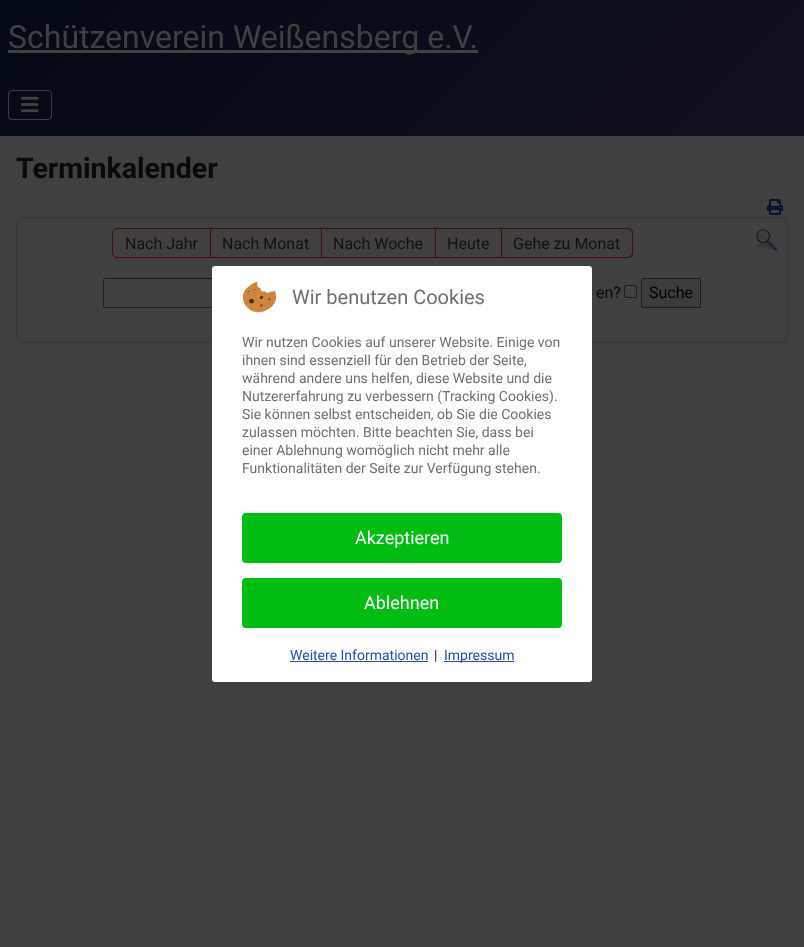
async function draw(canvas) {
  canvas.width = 804;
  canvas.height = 947;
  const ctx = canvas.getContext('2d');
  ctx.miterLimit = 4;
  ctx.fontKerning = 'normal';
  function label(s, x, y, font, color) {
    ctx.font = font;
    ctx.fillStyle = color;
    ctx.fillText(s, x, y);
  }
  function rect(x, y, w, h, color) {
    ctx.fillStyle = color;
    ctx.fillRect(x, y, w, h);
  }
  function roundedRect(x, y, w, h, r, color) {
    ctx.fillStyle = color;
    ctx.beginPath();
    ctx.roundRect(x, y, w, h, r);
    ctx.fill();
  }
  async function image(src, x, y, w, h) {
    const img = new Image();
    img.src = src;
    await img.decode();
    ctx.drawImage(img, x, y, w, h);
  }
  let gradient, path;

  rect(0, 0, 804, 947, '#404040');
  gradient = ctx.createLinearGradient(167, -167, 637, 303);
  gradient.addColorStop(0, '#040a15');
  gradient.addColorStop(1, '#11101e');
  ctx.fillStyle = gradient;
  ctx.fillRect(0, 0, 804, 136);
  rect(8, 50, 470, 3, '#404040');
  label('Schützenverein Weißensberg e.V.', 8, 48, '32px Roboto', '#404040');
  ctx.beginPath();
  ctx.roundRect(8.5, 90.5, 43, 29, 3.5);
  ctx.strokeStyle = '#404040';
  ctx.stroke();
  await image('assets/img1.png', 21, 96, 18, 17);
  label('Terminkalender', 16, 178, 'bold 28.5px Roboto', '#090a0b');
  await image('assets/img2.png', 767, 199, 16, 16);
  ctx.beginPath();
  ctx.roundRect(16.5, 217.5, 771, 125, 7.5);
  ctx.strokeStyle = '#373737';
  ctx.stroke();
  ctx.beginPath();
  ctx.roundRect(112.5, 228.5, 98, 29, [4.5, 0, 0, 4.5]);
  ctx.strokeStyle = '#400f0c';
  ctx.stroke();
  label('Nach Jahr', 125, 249, '16px Roboto', '#121212');
  rect(210, 228, 112, 1, '#400f0c');
  rect(321, 228, 1, 30, '#400f0c');
  rect(210, 257, 112, 1, '#400f0c');
  label('Nach Monat', 222, 249, '16px Roboto', '#121212');
  rect(321, 228, 115, 1, '#400f0c');
  rect(435, 228, 1, 30, '#400f0c');
  rect(321, 257, 115, 1, '#400f0c');
  label('Nach Woche', 333, 249, '16px Roboto', '#121212');
  rect(435, 228, 67, 1, '#400f0c');
  rect(501, 228, 1, 30, '#400f0c');
  rect(435, 257, 67, 1, '#400f0c');
  label('Heute', 447, 249, '16px Roboto', '#121212');
  ctx.fillStyle = '#400f0c';
  path = new Path2D('M501 228H628C631 228 633 230 633 233V253C633 256 631 258 628 258H501ZM501 229H628C630 229 632 231 632 233V253C632 255 630 257 628 257H501Z');
  ctx.fill(path, 'evenodd');
  label('Gehe zu Monat', 513, 249, '16px Roboto', '#121212');
  await image('assets/img3.png', 756, 229, 21, 22);
  ctx.beginPath();
  ctx.roundRect(103.5, 278.5, 301, 29, 1.5);
  ctx.strokeStyle = '#1e1e1e';
  ctx.stroke();
  label('en?', 596, 298, '16px Roboto', '#090a0b');
  ctx.beginPath();
  ctx.roundRect(624.5, 285.5, 12, 12, 1.5);
  ctx.stroke();
  ctx.fillStyle = '#3c3c3c';
  ctx.beginPath();
  ctx.roundRect(641.5, 278.5, 59, 29, 1.5);
  ctx.fill();
  ctx.stroke();
  label('Suche', 649, 298, '16px Roboto', '#000');
  roundedRect(212, 266, 380, 416, 3, '#fff');
  await image('assets/img4.png', 242, 281, 35, 32);
  label('Wir benutzen Cookies', 292, 304, '20px Roboto', '#707070');
  label('Wir nutzen Cookies auf unserer Website. Einige von', 242, 347, '14px Roboto', '#707070');
  label('ihnen sind essenziell für den Betrieb der Seite,', 242, 365, '14px Roboto', '#707070');
  label('während andere uns helfen, diese Website und die', 242, 383, '14px Roboto', '#707070');
  label('Nutzererfahrung zu verbessern (Tracking Cookies).', 242, 401, '14px Roboto', '#707070');
  label('Sie können selbst entscheiden, ob Sie die Cookies', 242, 419, '14px Roboto', '#707070');
  label('zulassen möchten. Bitte beachten Sie, dass bei', 242, 437, '14px Roboto', '#707070');
  label('einer Ablehnung womöglich nicht mehr alle', 242, 455, '14px Roboto', '#707070');
  label('Funktionalitäten der Seite zur Verfügung stehen.', 242, 473, '14px Roboto', '#707070');
  roundedRect(242, 513, 320, 50, 4, '#00bc13');
  label('Akzeptieren', 355, 544, '18px Roboto', '#fff');
  roundedRect(242, 578, 320, 50, 4, '#00bc13');
  label('Ablehnen', 364, 609, '18px Roboto', '#fff');
  label('Weitere Informationen', 290, 660, '14px Roboto', '#224faa');
  rect(290, 661, 138, 1, '#224faa');
  label('|', 434, 660, '14px Roboto', '#22262a');
  rect(444, 661, 70, 1, '#224faa');
  label('Impressum', 444, 660, '14px Roboto', '#224faa');
}

draw(document.querySelector('canvas'));
